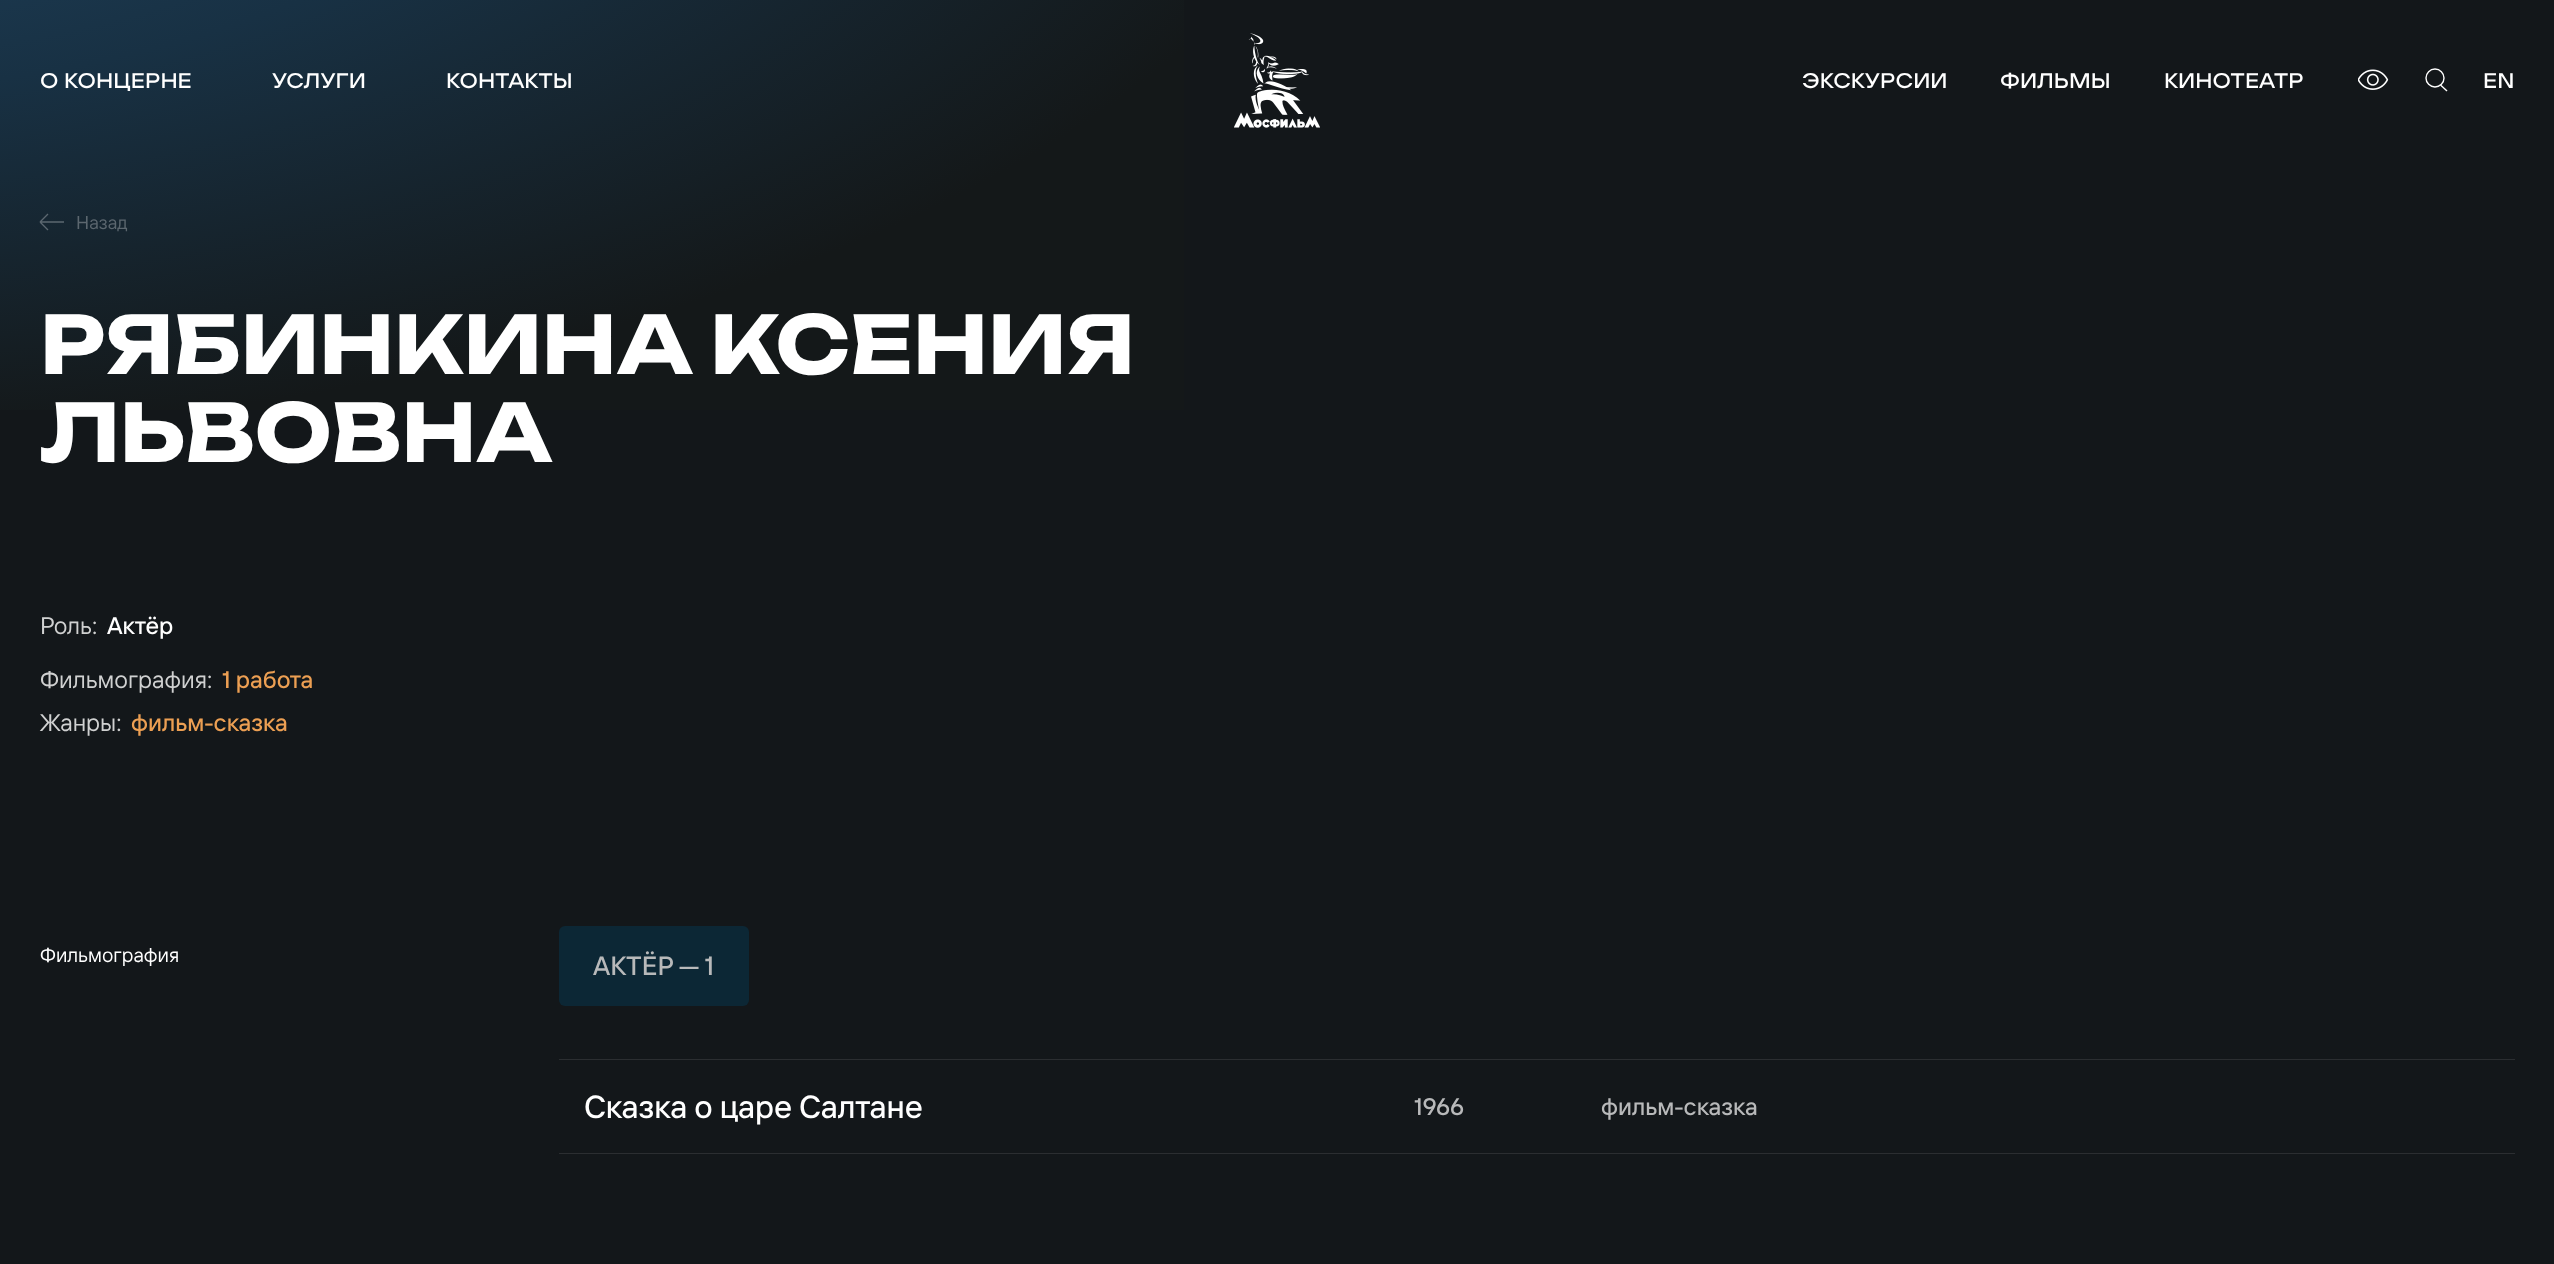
async function draw(canvas) {
  canvas.width = 2554;
  canvas.height = 1264;
  const ctx = canvas.getContext('2d');
  ctx.miterLimit = 4;
  ctx.fontKerning = 'normal';
  function label(s, x, y, font, color) {
    ctx.font = font;
    ctx.fillStyle = color;
    ctx.fillText(s, x, y);
  }
  function rect(x, y, w, h, color) {
    ctx.fillStyle = color;
    ctx.fillRect(x, y, w, h);
  }
  function roundedRect(x, y, w, h, r, color) {
    ctx.fillStyle = color;
    ctx.beginPath();
    ctx.roundRect(x, y, w, h, r);
    ctx.fill();
  }
  async function image(src, x, y, w, h) {
    const img = new Image();
    img.src = src;
    await img.decode();
    ctx.drawImage(img, x, y, w, h);
  }
  let gradient, path;

  rect(0, 0, 2554, 1264, '#13171a');
  gradient = ctx.createRadialGradient(-277, -622.86, 0, -277, -622.86, 1635);
  gradient.addColorStop(0.12, '#18262e');
  gradient.addColorStop(0.27, '#1d3c54');
  gradient.addColorStop(0.52, '#183144');
  gradient.addColorStop(1, '#141819');
  ctx.fillStyle = gradient;
  ctx.beginPath();
  ctx.rect(0, 0, 1184, 410);
  ctx.save();
  ctx.clip();
  ctx.scale(1, 714 / 1635);
  ctx.fillRect(0, 0, 2554, 2895);
  ctx.restore();
  label('О КОНЦЕРНЕ', 40, 88, '500 21.25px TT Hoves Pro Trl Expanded', '#fff');
  label('УСЛУГИ', 272, 88, '500 21.25px TT Hoves Pro Trl Expanded', '#fff');
  label('КОНТАКТЫ', 446, 88, '500 21.25px TT Hoves Pro Trl Expanded', '#fff');
  await image('assets/img1.png', 1234, 33, 86, 95);
  label('ЭКСКУРСИИ', 1802, 88, '500 21.25px TT Hoves Pro Trl Expanded', '#fff');
  label('ФИЛЬМЫ', 2000, 88, '500 21.25px TT Hoves Pro Trl Expanded', '#fff');
  label('КИНОТЕАТР', 2164, 88, '500 21.25px TT Hoves Pro Trl Expanded', '#fff');
  await image('assets/img2.png', 2358, 69, 31, 21);
  ctx.beginPath();
  ctx.arc(2435, 78, 9, 0, 2 * Math.PI);
  ctx.strokeStyle = '#fff';
  ctx.lineWidth = 1.4;
  ctx.stroke();
  path = new Path2D('M2440.5 85L2447 91');
  ctx.stroke(path);
  label('EN', 2483, 88, '500 21.25px TT Hoves Pro Trl Expanded', '#fff');
  path = new Path2D('M48 230L40 222M40 222L48 214M40 222H64');
  ctx.strokeStyle = '#5c6870';
  ctx.lineWidth = 1.3;
  ctx.lineJoin = 'round';
  ctx.stroke(path);
  label('Назад', 76, 229, '18.5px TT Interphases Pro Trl', '#5c676f');
  label('РЯБИНКИНА КСЕНИЯ', 40, 374, 'bold 79.8px Unbounded', '#fff');
  label('ЛЬВОВНА', 40, 462, 'bold 79.8px Unbounded', '#fff');
  label('Роль:', 40, 634, '24px TT Interphases Pro Trl', '#d0d1d1');
  label('Актёр', 107, 634, '500 24px TT Interphases Pro Trl', '#fff');
  label('Фильмография:', 40, 688, '24px TT Interphases Pro Trl', '#d0d1d1');
  label('1 работа', 222, 688, '500 24px TT Interphases Pro Trl', '#ec9f53');
  label('Жанры:', 40, 731, '24px TT Interphases Pro Trl', '#d0d1d1');
  label('фильм-сказка', 131, 731, '500 24px TT Interphases Pro Trl', '#ec9f53');
  label('Фильмография', 40, 962, '20px TT Interphases Pro Trl', '#fff');
  roundedRect(559, 926, 190, 80, 6, '#0c2735');
  label('АКТЁР — 1', 593, 975, '500 26.5px TT Interphases Pro Trl', '#b8b9ba');
  rect(559, 1059, 1956, 1, '#2b2e31');
  rect(559, 1153, 1956, 1, '#2b2e31');
  label('Сказка о царе Салтане', 584, 1118, '500 32px TT Interphases Pro Trl', '#fff');
  label('1966', 1414, 1115, '500 24px TT Interphases Pro Trl', '#b8b9ba');
  label('фильм-сказка', 1601, 1115, '500 24px TT Interphases Pro Trl', '#b8b9ba');
}

draw(document.querySelector('canvas'));
